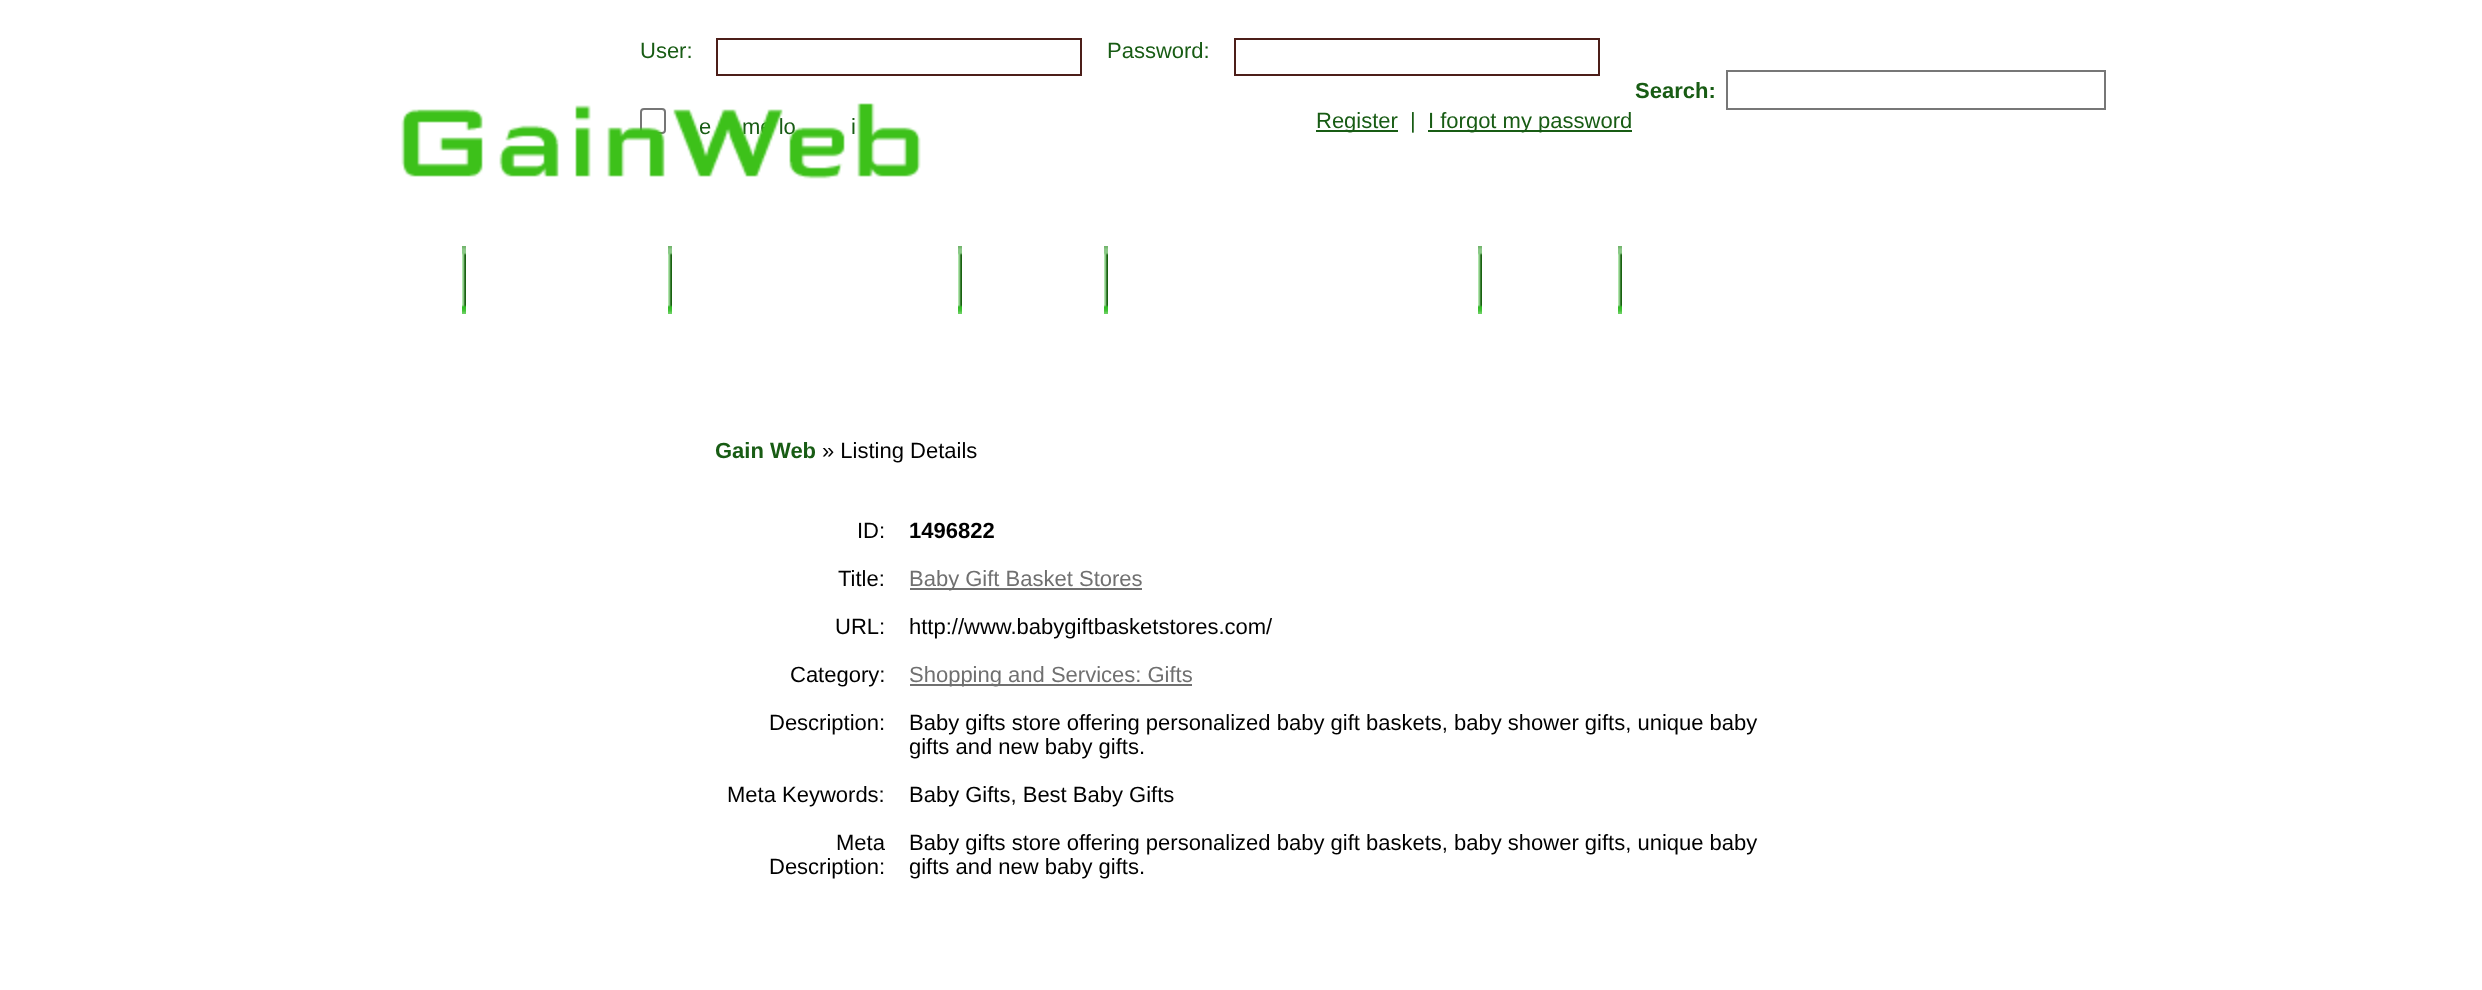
async function draw(canvas) {
  canvas.width = 2482;
  canvas.height = 990;
  const ctx = canvas.getContext('2d');
  ctx.miterLimit = 4;
  ctx.fontKerning = 'normal';
  function label(s, x, y, font, color) {
    ctx.font = font;
    ctx.fillStyle = color;
    ctx.fillText(s, x, y);
  }
  function rect(x, y, w, h, color) {
    ctx.fillStyle = color;
    ctx.fillRect(x, y, w, h);
  }
  async function image(src, x, y, w, h) {
    const img = new Image();
    img.src = src;
    await img.decode();
    ctx.drawImage(img, x, y, w, h);
  }

  rect(0, 0, 2482, 990, '#fff');
  label('User:', 640, 58, '22px Liberation Sans', '#185c14');
  ctx.strokeStyle = '#4c1e19';
  ctx.lineWidth = 2;
  ctx.strokeRect(717, 39, 364, 36);
  label('Password:', 1107, 58, '22px Liberation Sans', '#185c14');
  ctx.strokeRect(1235, 39, 364, 36);
  ctx.beginPath();
  ctx.roundRect(641, 109, 24, 24, 3);
  ctx.strokeStyle = '#767676';
  ctx.stroke();
  label('e', 699, 134, '22px Liberation Sans', '#185c14');
  label('me lo', 742, 134, '22px Liberation Sans', '#185c14');
  label('i', 851, 134, '22px Liberation Sans', '#185c14');
  rect(1316, 130, 82, 2, '#185c14');
  label('Register', 1316, 128, '22px Liberation Sans', '#185c14');
  label('|', 1410, 128, '22px Liberation Sans', '#185c14');
  rect(1428, 130, 204, 2, '#185c14');
  label('I forgot my password', 1428, 128, '22px Liberation Sans', '#185c14');
  label('Search:', 1635, 98, 'bold 22px Liberation Sans', '#185c14');
  ctx.strokeStyle = '#777';
  ctx.strokeRect(1727, 71, 378, 38);
  await image('assets/img1.png', 401, 103, 520, 76);
  await image('assets/img2.png', 462, 246, 4, 68);
  await image('assets/img2.png', 668, 246, 4, 68);
  await image('assets/img2.png', 958, 246, 4, 68);
  await image('assets/img2.png', 1104, 246, 4, 68);
  await image('assets/img2.png', 1478, 246, 4, 68);
  await image('assets/img2.png', 1618, 246, 4, 68);
  label('Gain Web', 715, 458, 'bold 22px Liberation Sans', '#185c14');
  label('» Listing Details', 822, 458, '22px Liberation Sans', '#000');
  label('ID:', 857, 538, '22px Liberation Sans', '#000');
  label('1496822', 909, 538, 'bold 22px Liberation Sans', '#000');
  label('Title:', 838, 586, '22px Liberation Sans', '#000');
  rect(910, 588, 232, 2, '#707070');
  label('Baby Gift Basket Stores', 909, 586, '22px Liberation Sans', '#707070');
  label('URL:', 835, 634, '22px Liberation Sans', '#000');
  label('http://www.babygiftbasketstores.com/', 909, 634, '22px Liberation Sans', '#000');
  label('Category:', 790, 682, '22px Liberation Sans', '#000');
  rect(910, 684, 282, 2, '#707070');
  label('Shopping and Services: Gifts', 909, 682, '22px Liberation Sans', '#707070');
  label('Description:', 769, 730, '22px Liberation Sans', '#000');
  label('Baby gifts store offering personalized baby gift baskets, baby shower gifts, unique baby', 909, 730, '22px Liberation Sans', '#000');
  label('gifts and new baby gifts.', 909, 754, '22px Liberation Sans', '#000');
  label('Meta Keywords:', 727, 802, '22px Liberation Sans', '#000');
  label('Baby Gifts, Best Baby Gifts', 909, 802, '22px Liberation Sans', '#000');
  label('Meta', 836, 850, '22px Liberation Sans', '#000');
  label('Description:', 769, 874, '22px Liberation Sans', '#000');
  label('Baby gifts store offering personalized baby gift baskets, baby shower gifts, unique baby', 909, 850, '22px Liberation Sans', '#000');
  label('gifts and new baby gifts.', 909, 874, '22px Liberation Sans', '#000');
}

draw(document.querySelector('canvas'));
